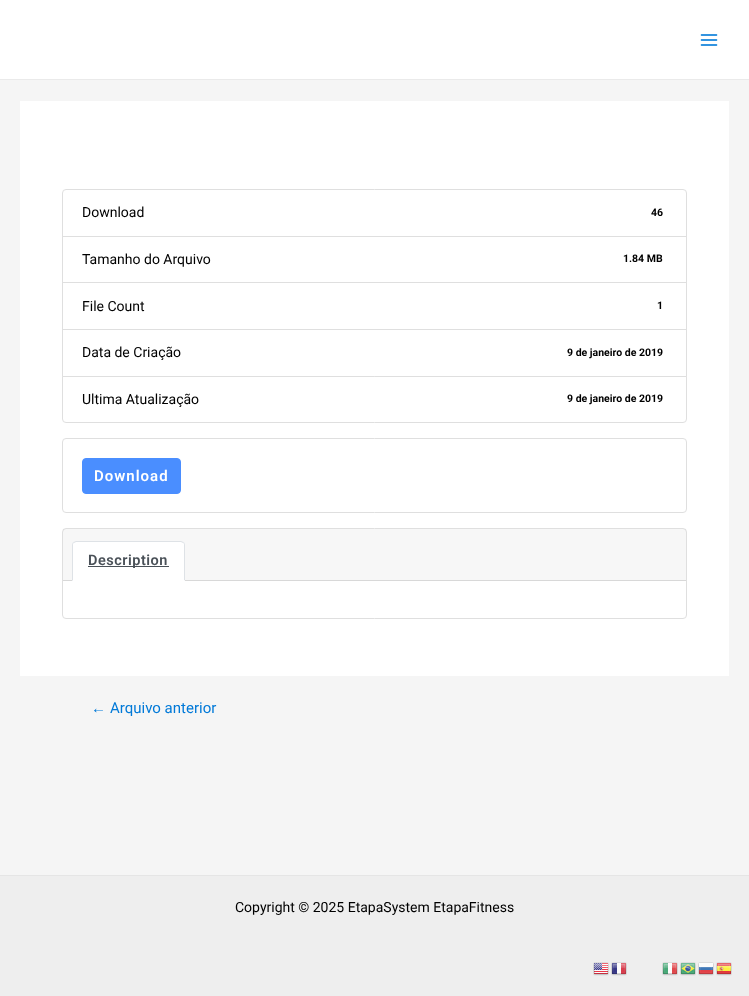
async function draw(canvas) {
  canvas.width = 749;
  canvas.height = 996;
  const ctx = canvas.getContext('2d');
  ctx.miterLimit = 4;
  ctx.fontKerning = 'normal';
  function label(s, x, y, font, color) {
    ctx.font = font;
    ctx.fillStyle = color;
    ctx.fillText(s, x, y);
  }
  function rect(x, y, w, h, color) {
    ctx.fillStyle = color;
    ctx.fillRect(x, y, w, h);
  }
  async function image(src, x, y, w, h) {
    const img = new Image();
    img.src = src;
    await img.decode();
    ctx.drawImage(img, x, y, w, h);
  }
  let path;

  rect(0, 0, 749, 996, '#f5f5f5');
  rect(0, 0, 749, 79, '#fff');
  rect(0, 79, 749, 1, '#eaeaea');
  await image('assets/img1.png', 700, 34, 18, 12);
  rect(20, 101, 709, 575, '#fff');
  ctx.beginPath();
  ctx.roundRect(62.5, 189.5, 624, 47, [3.5, 3.5, 0, 0]);
  ctx.strokeStyle = '#dfdfdf';
  ctx.stroke();
  label('Download', 82, 217, '14px Roboto', '#000');
  label('46', 651, 216, 'bold 10.5px Roboto', '#000');
  ctx.strokeRect(62.5, 236.5, 624, 46);
  label('Tamanho do Arquivo', 82, 264, '14px Roboto', '#000');
  label('1.84 MB', 623, 262, 'bold 10.5px Roboto', '#000');
  ctx.strokeRect(62.5, 282.5, 624, 47);
  label('File Count', 82, 311, '14px Roboto', '#000');
  label('1', 657, 309, 'bold 10.5px Roboto', '#000');
  ctx.strokeRect(62.5, 329.5, 624, 47);
  label('Data de Criação', 82, 357, '14px Roboto', '#000');
  label('9 de janeiro de 2019', 567, 356, 'bold 10.5px Roboto', '#000');
  ctx.fillStyle = '#fff';
  ctx.beginPath();
  ctx.roundRect(62.5, 376.5, 624, 46, [0, 0, 3.5, 3.5]);
  ctx.fill();
  ctx.stroke();
  label('Ultima Atualização', 82, 404, '14px Roboto', '#000');
  label('9 de janeiro de 2019', 567, 402, 'bold 10.5px Roboto', '#000');
  ctx.beginPath();
  ctx.roundRect(62.5, 438.5, 624, 74, 3.5);
  ctx.stroke();
  ctx.fillStyle = '#4a8eff';
  ctx.beginPath();
  ctx.roundRect(82.5, 458.5, 98, 35, 3.5);
  ctx.fill();
  ctx.strokeStyle = '#4a8eff';
  ctx.stroke();
  ctx.letterSpacing = '1px';
  label('Download', 94, 481, '600 15px Roboto', '#fff');
  ctx.beginPath();
  ctx.roundRect(62.5, 528.5, 624, 90, 3.5);
  ctx.strokeStyle = '#dfdfdf';
  ctx.stroke();
  rect(63, 529, 623, 51, '#00000008');
  rect(63, 580, 623, 1, '#d8d8d8');
  ctx.fillStyle = '#fff';
  ctx.beginPath();
  ctx.roundRect(72, 541, 113, 40, [4, 4, 0, 0]);
  ctx.fill();
  ctx.fillStyle = '#dee2e6';
  path = new Path2D('M76 541L73 542L74 543L76 542H181L183 543L184 542L181 541Z');
  ctx.fill(path);
  path = new Path2D('M185 581V545C185 544 184.5 543 184 542L183 543C184 543 184 544 184 545V580Z');
  ctx.fill(path);
  ctx.fillStyle = '#fff';
  path = new Path2D('M185 581L184 580H73L72 581Z');
  ctx.fill(path);
  ctx.fillStyle = '#dee2e6';
  path = new Path2D('M72 581L73 580V545C73 544 73 543 74 543L73 542C72.5 543 72 544 72 545Z');
  ctx.fill(path);
  rect(88, 566, 81, 1, '#495057');
  ctx.letterSpacing = '0.5px';
  label('Description', 88, 565, '600 14.5px Roboto', '#495057');
  ctx.letterSpacing = '0px';
  label('←', 91, 713, '15px Liberation Sans', '#0079d8');
  label('Arquivo anterior', 110, 713, '15px Roboto', '#0079d8');
  rect(0, 876, 749, 120, '#eee');
  rect(0, 875, 749, 1, '#e5e5e5');
  label('Copyright © 2025 EtapaSystem EtapaFitness', 235, 912, '14px Roboto', '#000');
  await image('assets/img2.png', 593, 962, 16, 14);
  await image('assets/img3.png', 611, 962, 16, 14);
  await image('assets/img4.png', 662, 962, 16, 14);
  await image('assets/img5.png', 680, 962, 16, 14);
  await image('assets/img6.png', 698, 962, 16, 14);
  await image('assets/img7.png', 716, 962, 16, 14);
}

draw(document.querySelector('canvas'));
